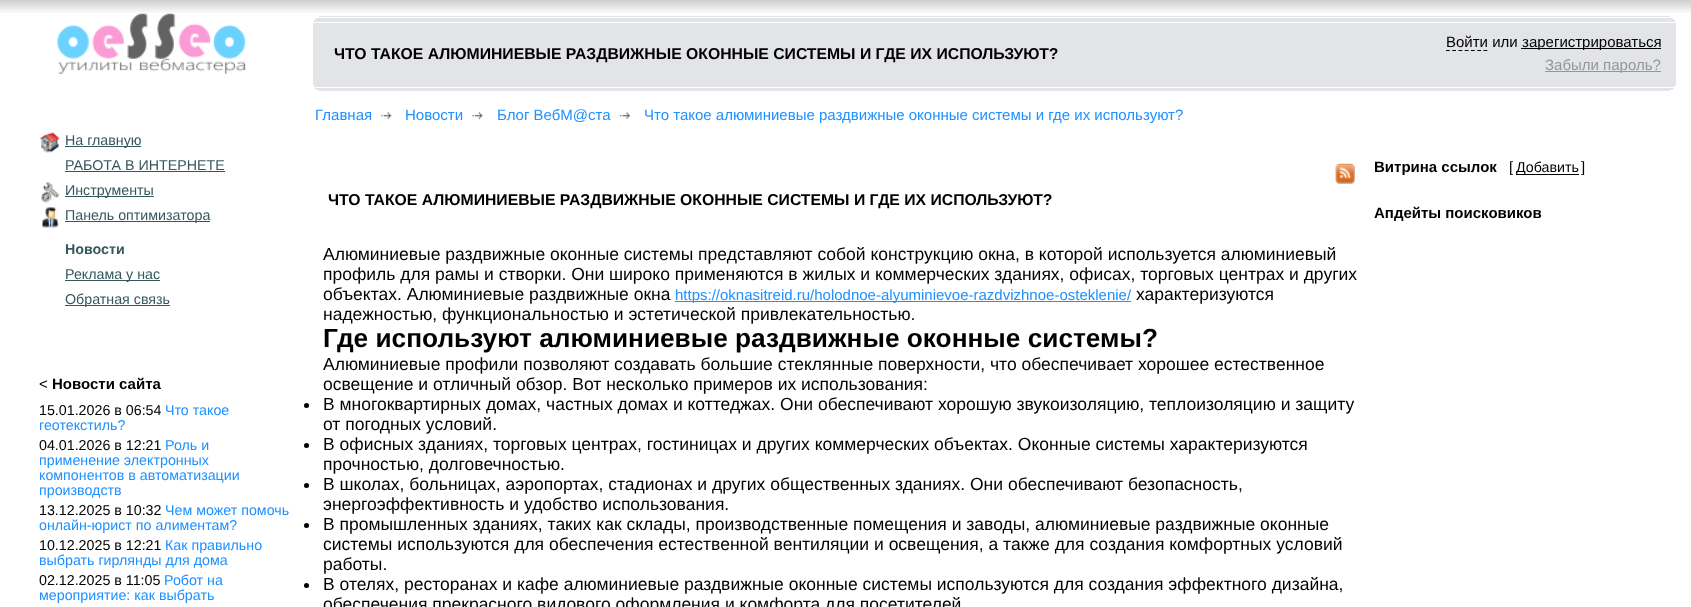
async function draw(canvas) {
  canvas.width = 1691;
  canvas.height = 607;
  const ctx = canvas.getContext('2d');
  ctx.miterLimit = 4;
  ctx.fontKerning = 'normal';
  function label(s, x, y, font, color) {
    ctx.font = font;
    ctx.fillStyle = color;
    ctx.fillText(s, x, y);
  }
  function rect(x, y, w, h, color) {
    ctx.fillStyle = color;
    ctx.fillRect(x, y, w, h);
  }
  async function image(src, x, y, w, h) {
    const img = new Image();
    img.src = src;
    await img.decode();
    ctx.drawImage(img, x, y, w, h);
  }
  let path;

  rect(0, 0, 1691, 607, '#fff');
  await image('assets/img1.png', 0, 0, 1691, 13);
  await image('assets/img2.png', 57, 13, 189, 61);
  await image('assets/img3.png', 40, 132, 19, 21);
  rect(65, 146, 76, 1, '#36585b');
  label('На главную', 65, 145, '14.25px Liberation Sans', '#36585b');
  label('РАБОТА В ИНТЕРНЕТЕ', 65, 170, '14.25px Liberation Sans', '#36585b');
  rect(65, 171, 160, 1, '#36585b');
  await image('assets/img4.png', 41, 182, 18, 21);
  rect(65, 196, 89, 1, '#36585b');
  label('Инструменты', 65, 195, '14.25px Liberation Sans', '#36585b');
  await image('assets/img5.png', 41, 207, 18, 21);
  rect(65, 221, 145, 1, '#36585b');
  label('Панель оптимизатора', 65, 220, '14.25px Liberation Sans', '#36585b');
  label('Новости', 65, 254, 'bold 14.25px Liberation Sans', '#36585b');
  rect(65, 280, 95, 1, '#36585b');
  label('Реклама у нас', 65, 279, '14.25px Liberation Sans', '#36585b');
  rect(65, 305, 105, 1, '#36585b');
  label('Обратная связь', 65, 304, '14.25px Liberation Sans', '#36585b');
  label('<', 39, 389, '15px Liberation Sans', '#000');
  label('Новости сайта', 52, 389, 'bold 15px Liberation Sans', '#000');
  label('15.01.2026 в 06:54', 39, 415, '14.25px Liberation Sans', '#000');
  label('Что такое', 165, 415, '14.25px Liberation Sans', '#1e90ff');
  label('геотекстиль?', 39, 430, '14.25px Liberation Sans', '#1e90ff');
  label('04.01.2026 в 12:21', 39, 450, '14.25px Liberation Sans', '#000');
  label('Роль и', 165, 450, '14.25px Liberation Sans', '#1e90ff');
  label('применение электронных', 39, 465, '14.25px Liberation Sans', '#1e90ff');
  label('компонентов в автоматизации', 39, 480, '14.25px Liberation Sans', '#1e90ff');
  label('производств', 39, 495, '14.25px Liberation Sans', '#1e90ff');
  label('13.12.2025 в 10:32', 39, 515, '14.25px Liberation Sans', '#000');
  label('Чем может помочь', 165, 515, '14.25px Liberation Sans', '#1e90ff');
  label('онлайн-юрист по алиментам?', 39, 530, '14.25px Liberation Sans', '#1e90ff');
  label('10.12.2025 в 12:21', 39, 550, '14.25px Liberation Sans', '#000');
  label('Как правильно', 165, 550, '14.25px Liberation Sans', '#1e90ff');
  label('выбрать гирлянды для дома', 39, 565, '14.25px Liberation Sans', '#1e90ff');
  label('02.12.2025 в 11:05', 39, 585, '14.25px Liberation Sans', '#000');
  label('Робот на', 164, 585, '14.25px Liberation Sans', '#1e90ff');
  label('мероприятие: как выбрать', 39, 600, '14.25px Liberation Sans', '#1e90ff');
  rect(319, 16, 1351, 1, '#e3e4e8');
  rect(316, 18, 1357, 1, '#e3e4e8');
  rect(315, 19, 1359, 1, '#e3e4e8');
  rect(314, 20, 1361, 2, '#e3e4e8');
  rect(313, 23, 1363, 62, '#e3e4e8');
  label('ЧТО ТАКОЕ АЛЮМИНИЕВЫЕ РАЗДВИЖНЫЕ ОКОННЫЕ СИСТЕМЫ И ГДЕ ИХ ИСПОЛЬЗУЮТ?', 334, 59, 'bold 15.75px Liberation Sans', '#000');
  label('Войти или', 1446, 47, '15px Liberation Sans', '#000');
  path = new Path2D('M1446 50.5H1487.5');
  ctx.strokeStyle = '#000';
  ctx.lineWidth = 1.2;
  ctx.setLineDash([3.75, 2.5]);
  ctx.stroke(path);
  rect(1521, 48, 140, 1, '#000');
  label('зарегистрироваться', 1522, 47, '15px Liberation Sans', '#000');
  rect(1545, 71, 116, 1, '#969696');
  label('Забыли пароль?', 1545, 70, '15px Liberation Sans', '#969696');
  rect(314, 85, 1361, 2, '#e3e4e8');
  rect(315, 88, 1359, 1, '#e3e4e8');
  rect(316, 89, 1357, 1, '#e3e4e8');
  rect(319, 90, 1351, 1, '#e3e4e8');
  label('Главная', 315, 120, '15px Liberation Sans', '#1e90ff');
  await image('assets/img6.png', 381, 112, 11, 7);
  label('Новости', 405, 120, '15px Liberation Sans', '#1e90ff');
  await image('assets/img7.png', 472, 112, 11, 7);
  label('Блог ВебМ@ста', 497, 120, '15px Liberation Sans', '#1e90ff');
  await image('assets/img8.png', 619, 112, 12, 7);
  label('Что такое алюминиевые раздвижные оконные системы и где их используют?', 644, 120, '15px Liberation Sans', '#1e90ff');
  await image('assets/img9.png', 1335, 163, 20, 21);
  label('ЧТО ТАКОЕ АЛЮМИНИЕВЫЕ РАЗДВИЖНЫЕ ОКОННЫЕ СИСТЕМЫ И ГДЕ ИХ ИСПОЛЬЗУЮТ?', 328, 205, 'bold 15.75px Liberation Sans', '#000');
  label('Алюминиевые раздвижные оконные системы представляют собой конструкцию окна, в которой используется алюминиевый', 323, 260, '17.5px Liberation Sans', '#000');
  label('профиль для рамы и створки. Они широко применяются в жилых и коммерческих зданиях, офисах, торговых центрах и других', 323, 280, '17.5px Liberation Sans', '#000');
  label('объектах. Алюминиевые раздвижные окна', 323, 300, '17.5px Liberation Sans', '#000');
  rect(675, 301, 456, 1, '#1e90ff');
  label('https://oknasitreid.ru/holodnoe-alyuminievoe-razdvizhnoe-osteklenie/', 675, 300, '15px Liberation Sans', '#1e90ff');
  label('характеризуются', 1136, 300, '17.5px Liberation Sans', '#000');
  label('надежностью, функциональностью и эстетической привлекательностью.', 323, 320, '17.5px Liberation Sans', '#000');
  label('Где используют алюминиевые раздвижные оконные системы?', 323, 347, 'bold 26.25px Liberation Sans', '#000');
  label('Алюминиевые профили позволяют создавать большие стеклянные поверхности, что обеспечивает хорошее естественное', 323, 370, '17.5px Liberation Sans', '#000');
  label('освещение и отличный обзор. Вот несколько примеров их использования:', 323, 390, '17.5px Liberation Sans', '#000');
  ctx.beginPath();
  ctx.arc(306.5, 405.5, 2.5, 0, 2 * Math.PI);
  ctx.fill();
  label('В многоквартирных домах, частных домах и коттеджах. Они обеспечивают хорошую звукоизоляцию, теплоизоляцию и защиту', 323, 410, '17.5px Liberation Sans', '#000');
  label('от погодных условий.', 323, 430, '17.5px Liberation Sans', '#000');
  ctx.beginPath();
  ctx.arc(306.5, 445.5, 2.5, 0, 2 * Math.PI);
  ctx.fill();
  label('В офисных зданиях, торговых центрах, гостиницах и других коммерческих объектах. Оконные системы характеризуются', 323, 450, '17.5px Liberation Sans', '#000');
  label('прочностью, долговечностью.', 323, 470, '17.5px Liberation Sans', '#000');
  ctx.beginPath();
  ctx.arc(306.5, 485.5, 2.5, 0, 2 * Math.PI);
  ctx.fill();
  label('В школах, больницах, аэропортах, стадионах и других общественных зданиях. Они обеспечивают безопасность,', 323, 490, '17.5px Liberation Sans', '#000');
  label('энергоэффективность и удобство использования.', 323, 510, '17.5px Liberation Sans', '#000');
  ctx.beginPath();
  ctx.arc(306.5, 525.5, 2.5, 0, 2 * Math.PI);
  ctx.fill();
  label('В промышленных зданиях, таких как склады, производственные помещения и заводы, алюминиевые раздвижные оконные', 323, 530, '17.5px Liberation Sans', '#000');
  label('системы используются для обеспечения естественной вентиляции и освещения, а также для создания комфортных условий', 323, 550, '17.5px Liberation Sans', '#000');
  label('работы.', 323, 570, '17.5px Liberation Sans', '#000');
  ctx.beginPath();
  ctx.arc(306.5, 585.5, 2.5, 0, 2 * Math.PI);
  ctx.fill();
  label('В отелях, ресторанах и кафе алюминиевые раздвижные оконные системы используются для создания эффектного дизайна,', 323, 590, '17.5px Liberation Sans', '#000');
  label('обеспечения прекрасного видового оформления и комфорта для посетителей', 323, 610, '17.5px Liberation Sans', '#000');
  label('Витрина ссылок', 1374, 172, 'bold 15px Liberation Sans', '#000');
  label('[', 1509, 172, '15px Liberation Sans', '#000');
  rect(1516, 174, 63, 1, '#000');
  label('Добавить', 1516, 172, '14.25px Liberation Sans', '#000');
  label(']', 1581, 172, '15px Liberation Sans', '#000');
  label('Апдейты поисковиков', 1374, 218, 'bold 15px Liberation Sans', '#000');
}

draw(document.querySelector('canvas'));
